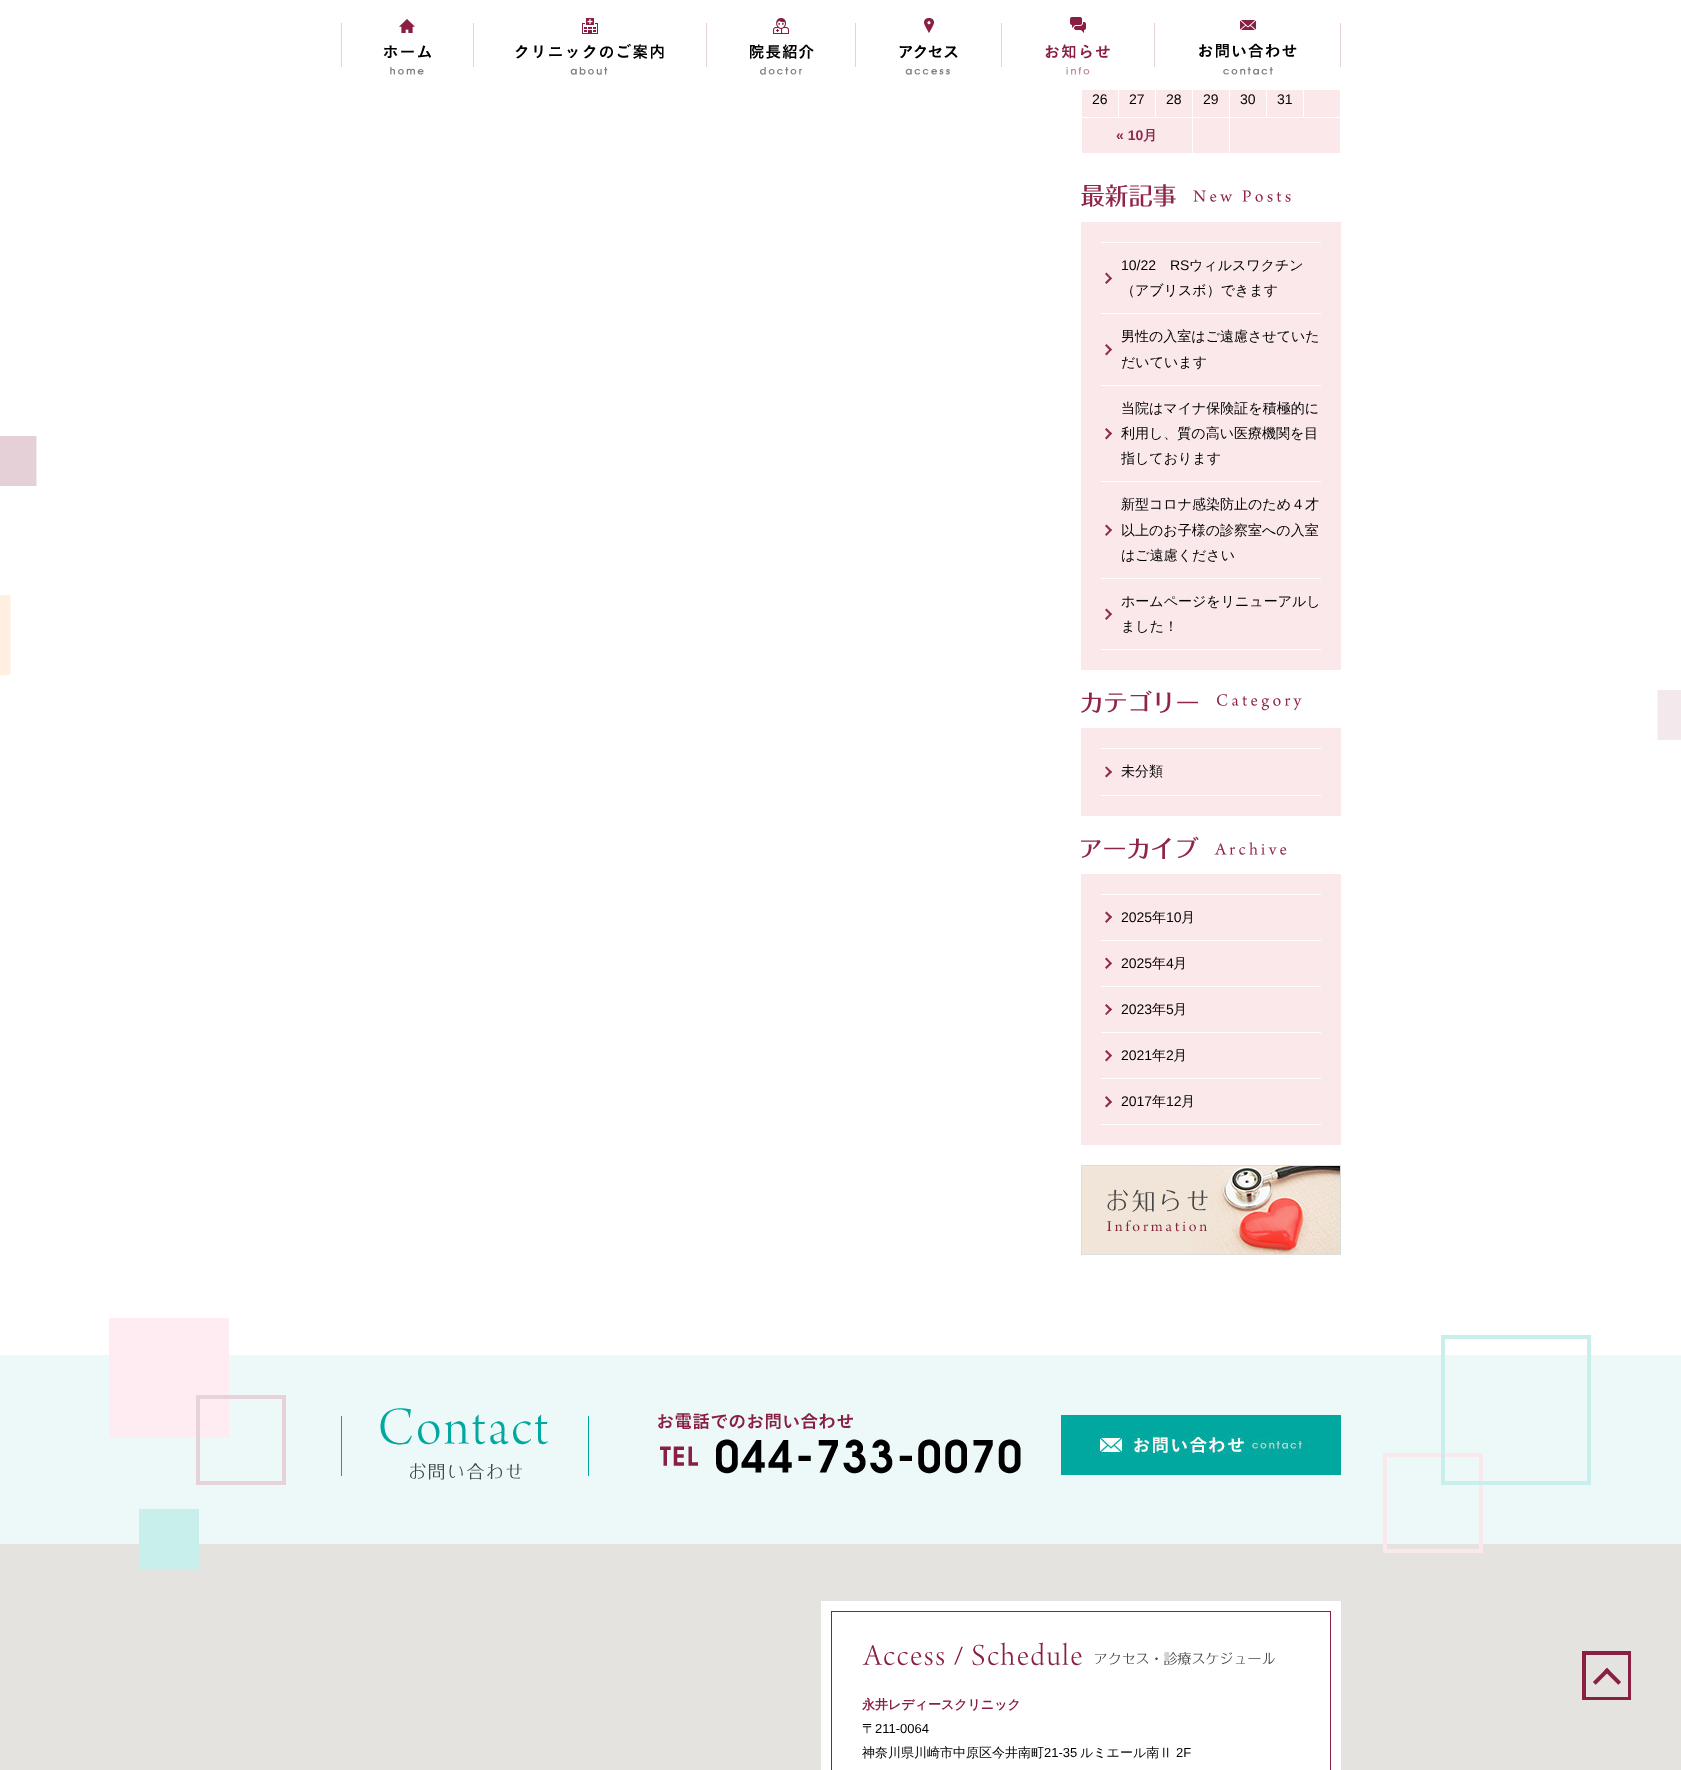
async function draw(canvas) {
  canvas.width = 1681;
  canvas.height = 1770;
  const ctx = canvas.getContext('2d');
  ctx.miterLimit = 4;
  ctx.fontKerning = 'normal';
  function label(s, x, y, font, color) {
    ctx.font = font;
    ctx.fillStyle = color;
    ctx.fillText(s, x, y);
  }
  function rect(x, y, w, h, color) {
    ctx.fillStyle = color;
    ctx.fillRect(x, y, w, h);
  }
  async function image(src, x, y, w, h) {
    const img = new Image();
    img.src = src;
    await img.decode();
    ctx.drawImage(img, x, y, w, h);
  }
  let path;

  rect(0, 0, 1681, 1770, '#fff');
  await image('assets/img1.png', 341, 19, 90, 56);
  await image('assets/img2.png', 473, 18, 191, 57);
  await image('assets/img3.png', 706, 18, 108, 57);
  await image('assets/img4.png', 855, 18, 147, 57);
  await image('assets/img5.png', 1045, 17, 110, 58);
  await image('assets/img6.png', 1199, 20, 142, 55);
  await image('assets/img7.png', 0, 436, 1681, 304);
  rect(1082, 90, 258, 63, '#fbe8ea');
  rect(1303, 117, 38, 1, '#fff');
  rect(1303, 90, 1, 28, '#fff');
  rect(1266, 117, 38, 1, '#fff');
  rect(1266, 90, 1, 28, '#fff');
  rect(1229, 117, 38, 1, '#fff');
  rect(1229, 90, 1, 28, '#fff');
  rect(1192, 117, 38, 1, '#fff');
  rect(1192, 90, 1, 28, '#fff');
  rect(1155, 117, 38, 1, '#fff');
  rect(1155, 90, 1, 28, '#fff');
  rect(1118, 117, 38, 1, '#fff');
  rect(1118, 90, 1, 28, '#fff');
  rect(1081, 117, 38, 1, '#fff');
  label('26', 1092, 104, '14px Liberation Sans', '#000');
  label('27', 1129, 104, '14px Liberation Sans', '#000');
  label('28', 1166, 104, '14px Liberation Sans', '#000');
  label('29', 1203, 104, '14px Liberation Sans', '#000');
  label('30', 1240, 104, '14px Liberation Sans', '#000');
  label('31', 1277, 104, '14px Liberation Sans', '#000');
  label('« 10', 1116, 140, 'bold 14px Liberation Sans', '#8f2a4c');
  label('月', 1143, 140, 'bold 14px WenQuanYi Zen Hei', '#8f2a4c');
  rect(1192, 117, 1, 37, '#fff');
  rect(1229, 117, 1, 37, '#fff');
  await image('assets/img8.png', 1081, 184, 210, 23);
  rect(1081, 222, 260, 448, '#fbe8ea');
  rect(1101, 242, 220, 1, '#fff');
  rect(1101, 313, 220, 1, '#fff');
  label('10/22', 1121, 270, '14px Liberation Sans', '#000');
  label('RS', 1170, 270, '14px Liberation Sans', '#000');
  label('ウィルスワクチン', 1189, 270, '500 14px WenQuanYi Zen Hei', '#000');
  ctx.fillStyle = '#8f2a4c';
  path = new Path2D('M1106.5 272.5L1112 278.5L1110.5 279.5L1105 274Z');
  ctx.fill(path);
  path = new Path2D('M1110.5 277L1112 278.5L1106.5 284L1105 282.5Z');
  ctx.fill(path);
  label('（アブリスボ）できます', 1121, 295, '500 14px WenQuanYi Zen Hei', '#000');
  rect(1101, 385, 220, 1, '#fff');
  label('男性の入室はご遠慮させていた', 1121, 341, '500 14px WenQuanYi Zen Hei', '#000');
  ctx.fillStyle = '#8f2a4c';
  path = new Path2D('M1106.5 344L1112 349.5L1110.5 351L1105 345.5Z');
  ctx.fill(path);
  path = new Path2D('M1110.5 348.5L1112 349.5L1106.5 355.5L1105 354Z');
  ctx.fill(path);
  label('だいています', 1121, 367, '500 14px WenQuanYi Zen Hei', '#000');
  rect(1101, 481, 220, 1, '#fff');
  label('当院はマイナ保険証を積極的に', 1121, 413, '500 14px WenQuanYi Zen Hei', '#000');
  ctx.fillStyle = '#8f2a4c';
  path = new Path2D('M1106.5 428L1112 433.5L1110.5 435L1105 429.5Z');
  ctx.fill(path);
  path = new Path2D('M1110.5 432L1112 433.5L1106.5 439.5L1105 438Z');
  ctx.fill(path);
  label('利用し、質の高い医療機関を目', 1121, 438, '500 14px WenQuanYi Zen Hei', '#000');
  label('指しております', 1121, 463, '500 14px WenQuanYi Zen Hei', '#000');
  rect(1101, 578, 220, 1, '#fff');
  label('新型コロナ感染防止のため４才', 1121, 509, '500 14px WenQuanYi Zen Hei', '#000');
  ctx.fillStyle = '#8f2a4c';
  path = new Path2D('M1106.5 524.5L1112 530L1110.5 531.5L1105 526Z');
  ctx.fill(path);
  path = new Path2D('M1110.5 529L1112 530L1106.5 536L1105 534.5Z');
  ctx.fill(path);
  label('以上のお子様の診察室への入室', 1121, 535, '500 14px WenQuanYi Zen Hei', '#000');
  label('はご遠慮ください', 1121, 560, '500 14px WenQuanYi Zen Hei', '#000');
  rect(1101, 649, 220, 1, '#fff');
  label('ホームページをリニューアルし', 1121, 606, '500 14px WenQuanYi Zen Hei', '#000');
  ctx.fillStyle = '#8f2a4c';
  path = new Path2D('M1106.5 608.5L1112 614L1110.5 615.5L1105 610Z');
  ctx.fill(path);
  path = new Path2D('M1110.5 613L1112 614L1106.5 620L1105 618.5Z');
  ctx.fill(path);
  label('ました！', 1121, 631, '500 14px WenQuanYi Zen Hei', '#000');
  await image('assets/img9.png', 1081, 690, 221, 23);
  rect(1081, 728, 260, 88, '#fbe8ea');
  rect(1101, 748, 220, 1, '#fff');
  rect(1101, 795, 220, 1, '#fff');
  ctx.fillStyle = '#8f2a4c';
  path = new Path2D('M1106.5 766.5L1112 772L1110.5 773.5L1105 767.5Z');
  ctx.fill(path);
  path = new Path2D('M1110.5 770.5L1112 772L1106.5 777.5L1105 776Z');
  ctx.fill(path);
  label('未分類', 1121, 776, '500 14px WenQuanYi Zen Hei', '#000');
  await image('assets/img10.png', 1081, 836, 206, 23);
  rect(1081, 874, 260, 271, '#fbe8ea');
  rect(1101, 894, 220, 1, '#fff');
  rect(1101, 940, 220, 1, '#fff');
  ctx.fillStyle = '#8f2a4c';
  path = new Path2D('M1106.5 911.5L1112 917L1110.5 918.5L1105 913Z');
  ctx.fill(path);
  path = new Path2D('M1110.5 915.5L1112 917L1106.5 923L1105 921.5Z');
  ctx.fill(path);
  label('2025', 1121, 922, '14px Liberation Sans', '#000');
  label('年', 1152, 922, '500 14px WenQuanYi Zen Hei', '#000');
  label('10', 1166, 922, '14px Liberation Sans', '#000');
  label('月', 1181, 922, '500 14px WenQuanYi Zen Hei', '#000');
  rect(1101, 986, 220, 1, '#fff');
  ctx.fillStyle = '#8f2a4c';
  path = new Path2D('M1106.5 957.5L1112 963.5L1110.5 964.5L1105 959Z');
  ctx.fill(path);
  path = new Path2D('M1110.5 962L1112 963.5L1106.5 969L1105 967.5Z');
  ctx.fill(path);
  label('2025', 1121, 968, '14px Liberation Sans', '#000');
  label('年', 1152, 968, '500 14px WenQuanYi Zen Hei', '#000');
  label('4', 1166, 968, '14px Liberation Sans', '#000');
  label('月', 1173, 968, '500 14px WenQuanYi Zen Hei', '#000');
  rect(1101, 1032, 220, 1, '#fff');
  ctx.fillStyle = '#8f2a4c';
  path = new Path2D('M1106.5 1004L1112 1009.5L1110.5 1011L1105 1005.5Z');
  ctx.fill(path);
  path = new Path2D('M1110.5 1008L1112 1009.5L1106.5 1015L1105 1014Z');
  ctx.fill(path);
  label('2023', 1121, 1014, '14px Liberation Sans', '#000');
  label('年', 1152, 1014, '500 14px WenQuanYi Zen Hei', '#000');
  label('5', 1166, 1014, '14px Liberation Sans', '#000');
  label('月', 1173, 1014, '500 14px WenQuanYi Zen Hei', '#000');
  rect(1101, 1078, 220, 1, '#fff');
  ctx.fillStyle = '#8f2a4c';
  path = new Path2D('M1106.5 1050L1112 1055.5L1110.5 1057L1105 1051.5Z');
  ctx.fill(path);
  path = new Path2D('M1110.5 1054.5L1112 1055.5L1106.5 1061.5L1105 1060Z');
  ctx.fill(path);
  label('2021', 1121, 1060, '14px Liberation Sans', '#000');
  label('年', 1152, 1060, '500 14px WenQuanYi Zen Hei', '#000');
  label('2', 1166, 1060, '14px Liberation Sans', '#000');
  label('月', 1173, 1060, '500 14px WenQuanYi Zen Hei', '#000');
  rect(1101, 1124, 220, 1, '#fff');
  ctx.fillStyle = '#8f2a4c';
  path = new Path2D('M1106.5 1096L1112 1102L1110.5 1103.5L1105 1097.5Z');
  ctx.fill(path);
  path = new Path2D('M1110.5 1100.5L1112 1102L1106.5 1107.5L1105 1106Z');
  ctx.fill(path);
  label('2017', 1121, 1106, '14px Liberation Sans', '#000');
  label('年', 1152, 1106, '500 14px WenQuanYi Zen Hei', '#000');
  label('12', 1166, 1106, '14px Liberation Sans', '#000');
  label('月', 1181, 1106, '500 14px WenQuanYi Zen Hei', '#000');
  await image('assets/img11.png', 1081, 1165, 260, 90);
  rect(0, 1355, 1681, 189, '#edf9f9');
  rect(0, 1544, 1681, 226, '#e5e3df');
  await image('assets/img12.png', 109, 1318, 177, 251);
  await image('assets/img13.png', 341, 1408, 248, 72);
  await image('assets/img14.png', 658, 1413, 363, 61);
  await image('assets/img15.png', 1061, 1415, 280, 60);
  await image('assets/img16.png', 1383, 1335, 208, 218);
  rect(821, 1601, 520, 169, '#fff');
  ctx.strokeStyle = '#891f43';
  ctx.strokeRect(831.5, 1611.5, 499, 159);
  await image('assets/img17.png', 862, 1642, 413, 24);
  label('永井レディースクリニック', 862, 1709, 'bold 13px WenQuanYi Zen Hei', '#891f43');
  label('〒', 862, 1733, '500 13px WenQuanYi Zen Hei', '#000');
  label('211-0064', 875, 1733, '13px Liberation Sans', '#000');
  label('神奈川県川崎市中原区今井南町', 862, 1757, '500 13px WenQuanYi Zen Hei', '#000');
  label('21-35', 1044, 1757, '13px Liberation Sans', '#000');
  label('ルミエール南Ⅱ', 1080, 1757, '500 13px WenQuanYi Zen Hei', '#000');
  label('2F', 1176, 1757, '13px Liberation Sans', '#000');
  await image('assets/img18.png', 1582, 1651, 49, 49);
}

draw(document.querySelector('canvas'));
